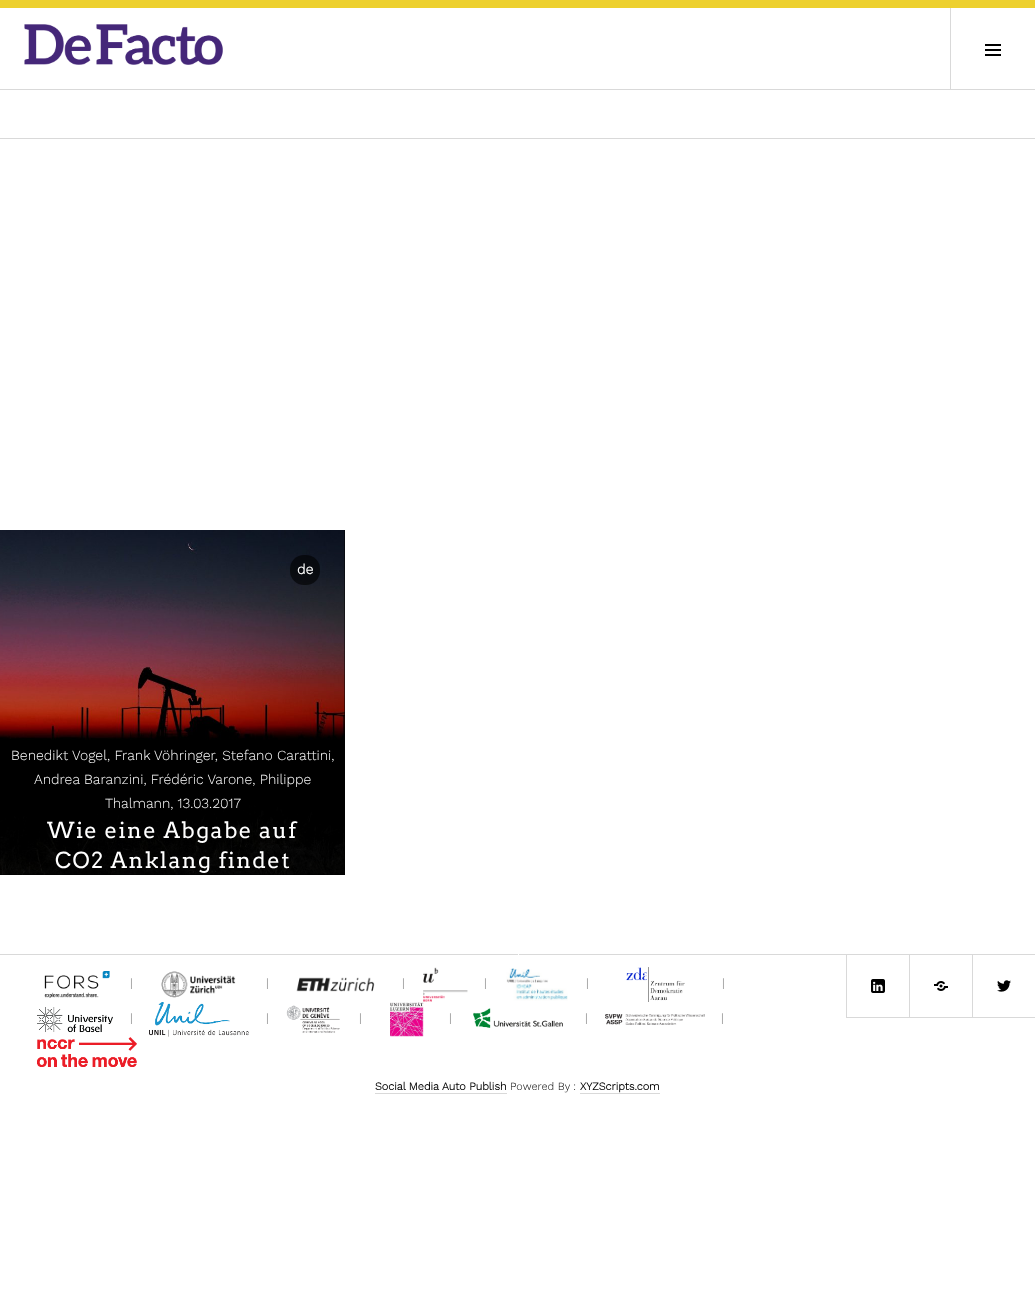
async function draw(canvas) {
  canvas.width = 1035;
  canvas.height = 1312;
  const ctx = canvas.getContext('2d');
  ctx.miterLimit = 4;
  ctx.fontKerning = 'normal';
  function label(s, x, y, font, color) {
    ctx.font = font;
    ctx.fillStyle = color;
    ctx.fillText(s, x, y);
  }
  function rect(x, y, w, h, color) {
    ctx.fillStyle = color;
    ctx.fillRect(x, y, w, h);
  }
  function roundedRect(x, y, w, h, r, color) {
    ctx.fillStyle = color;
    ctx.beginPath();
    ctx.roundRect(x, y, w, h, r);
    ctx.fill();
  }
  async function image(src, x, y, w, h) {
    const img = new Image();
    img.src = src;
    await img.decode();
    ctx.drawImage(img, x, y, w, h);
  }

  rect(0, 0, 1035, 1312, '#fff');
  rect(0, 89, 1035, 1, '#d9d9d9');
  rect(950, 0, 1, 89, '#d9d9d9');
  rect(0, 0, 1035, 8, '#edd02e');
  await image('assets/img1.png', 24, 24, 199, 41);
  await image('assets/img2.png', 985, 44, 16, 12);
  rect(0, 138, 1035, 1, '#d9d9d9');
  rect(0, 530, 345, 345, '#000');
  await image('assets/img3.png', 0, 530, 345, 345);
  roundedRect(290, 555, 30, 30, 14, '#00000099');
  label('de', 297, 574, 'bold 14px Work Sans', '#fff');
  rect(0, 788, 345, 87, '#00000099');
  label('Benedikt Vogel, Frank Vöhringer, Stefano Carattini,', 11, 760, '300 14px Work Sans', '#fff');
  label('Andrea Baranzini, Frédéric Varone, Philippe', 34, 784, '300 14px Work Sans', '#fff');
  label('Thalmann, 13.03.2017', 105, 808, '300 14px Work Sans', '#fff');
  ctx.letterSpacing = '1.4px';
  label('Wie eine Abgabe auf', 47, 838, '22px Arvo', '#fff');
  label('CO2 Anklang findet', 55, 868, '22px Arvo', '#fff');
  rect(0, 954, 1035, 1, '#d9d9d9');
  rect(518, 954, 1, 1, '#fff');
  await image('assets/img4.png', 44, 971, 66, 27);
  ctx.letterSpacing = '0px';
  label('|', 130, 987, '300 12px Work Sans', '#666');
  await image('assets/img5.png', 161, 971, 75, 27);
  label('|', 266, 987, '300 12px Work Sans', '#666');
  await image('assets/img6.png', 296, 977, 79, 15);
  label('|', 402, 987, '300 12px Work Sans', '#666');
  await image('assets/img7.png', 423, 967, 45, 35);
  label('|', 484, 987, '300 12px Work Sans', '#666');
  await image('assets/img8.png', 506, 968, 62, 33);
  label('|', 586, 987, '300 12px Work Sans', '#666');
  await image('assets/img9.png', 626, 967, 59, 35);
  label('|', 722, 987, '300 12px Work Sans', '#666');
  await image('assets/img10.png', 37, 1007, 76, 26);
  label('|', 130, 1022, '300 12px Work Sans', '#666');
  await image('assets/img11.png', 149, 1002, 100, 35);
  label('|', 266, 1022, '300 12px Work Sans', '#666');
  await image('assets/img12.png', 286, 1005, 54, 28);
  label('|', 359, 1022, '300 12px Work Sans', '#666');
  await image('assets/img13.png', 390, 1002, 34, 35);
  label('|', 449, 1022, '300 12px Work Sans', '#666');
  await image('assets/img14.png', 473, 1008, 90, 20);
  label('|', 585, 1022, '300 12px Work Sans', '#666');
  await image('assets/img15.png', 605, 1014, 100, 11);
  label('|', 721, 1022, '300 12px Work Sans', '#666');
  await image('assets/img16.png', 37, 1037, 100, 30);
  ctx.save();
  ctx.beginPath();
  ctx.rect(0, 955, 1035, 124);
  ctx.clip();
  ctx.strokeStyle = '#d9d9d9';
  ctx.strokeRect(846.5, 954.5, 63, 63);
  ctx.restore();
  await image('assets/img17.png', 871, 979, 14, 14);
  ctx.save();
  ctx.beginPath();
  ctx.rect(0, 955, 1035, 124);
  ctx.clip();
  ctx.strokeStyle = '#d9d9d9';
  ctx.strokeRect(909.5, 954.5, 63, 63);
  ctx.restore();
  await image('assets/img18.png', 934, 981, 14, 10);
  ctx.save();
  ctx.beginPath();
  ctx.rect(0, 955, 1035, 124);
  ctx.clip();
  ctx.strokeStyle = '#d9d9d9';
  ctx.strokeRect(972.5, 954.5, 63, 63);
  ctx.restore();
  await image('assets/img19.png', 997, 980, 14, 12);
  label('Social Media Auto Publish', 375, 1090, 'bold 11px Work Sans', '#000');
  rect(375, 1093, 132, 1, '#d9d9d9');
  label('Powered By :', 510, 1090, '300 11px Work Sans', '#000');
  label('XYZScripts.com', 580, 1090, 'bold 11px Work Sans', '#000');
  rect(580, 1093, 80, 1, '#d9d9d9');
}

draw(document.querySelector('canvas'));
